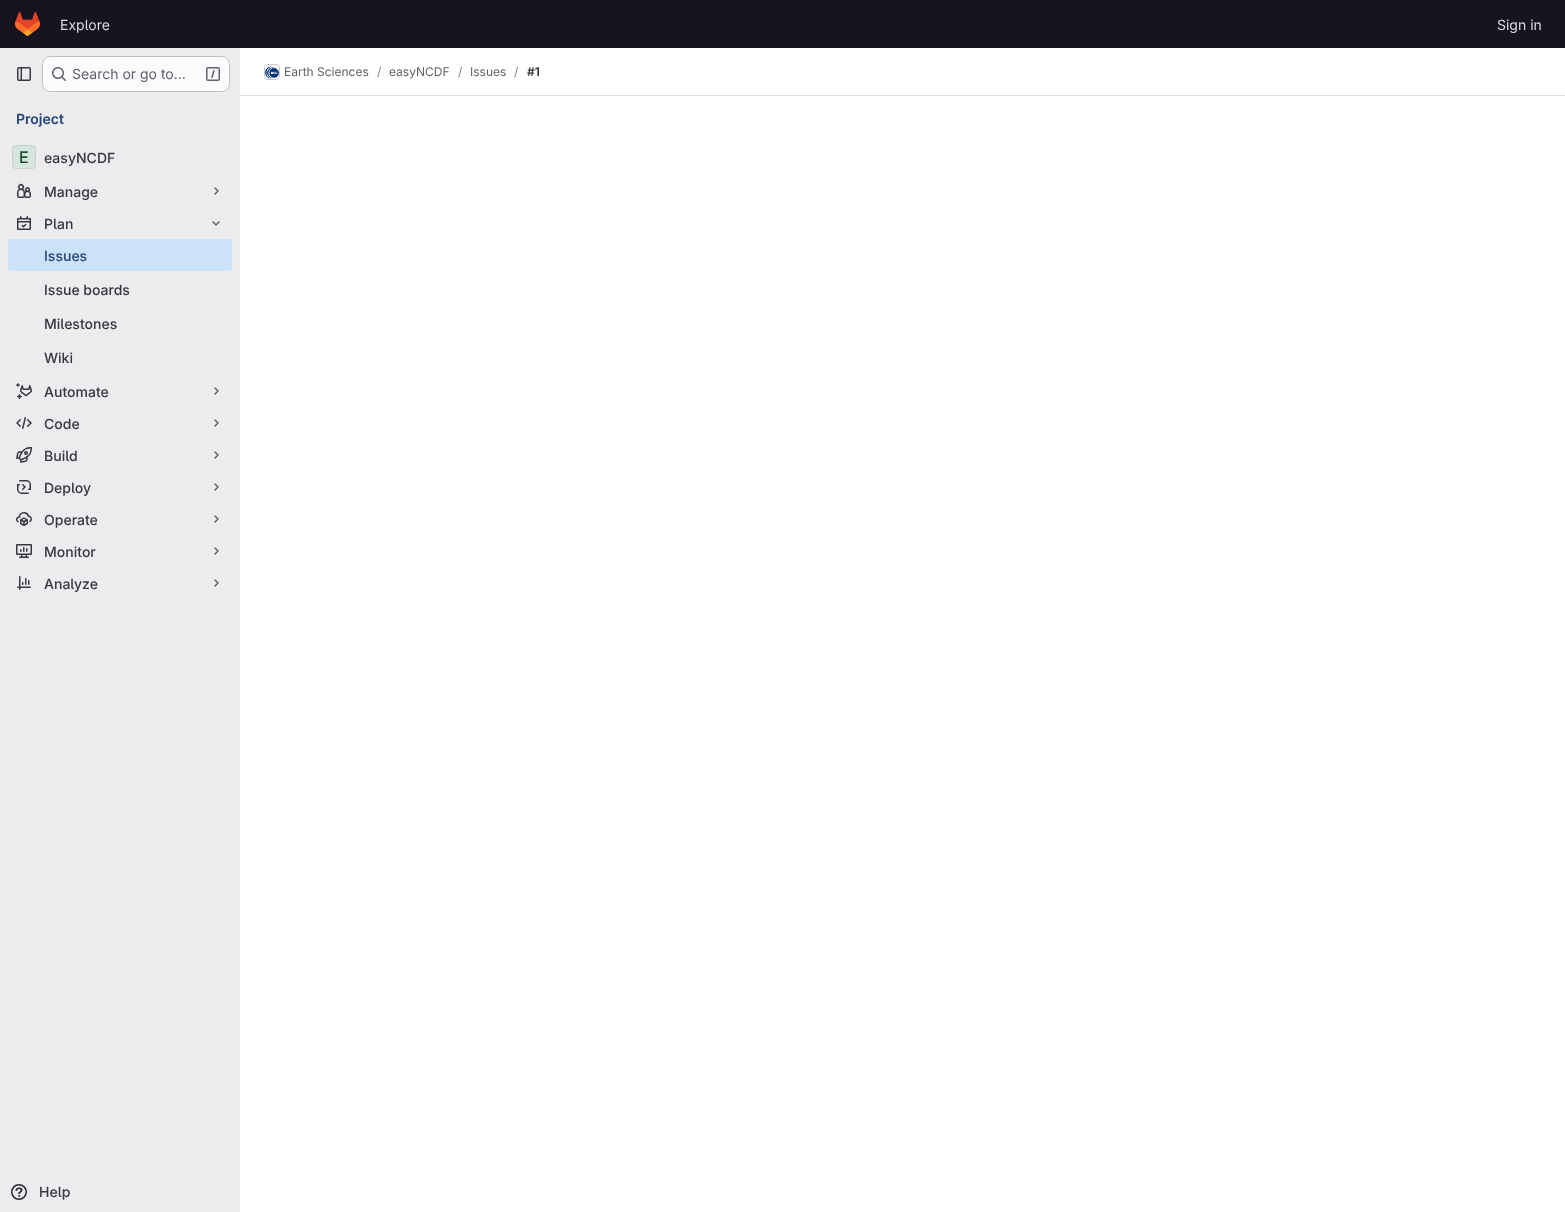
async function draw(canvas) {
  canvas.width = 1565;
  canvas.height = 1212;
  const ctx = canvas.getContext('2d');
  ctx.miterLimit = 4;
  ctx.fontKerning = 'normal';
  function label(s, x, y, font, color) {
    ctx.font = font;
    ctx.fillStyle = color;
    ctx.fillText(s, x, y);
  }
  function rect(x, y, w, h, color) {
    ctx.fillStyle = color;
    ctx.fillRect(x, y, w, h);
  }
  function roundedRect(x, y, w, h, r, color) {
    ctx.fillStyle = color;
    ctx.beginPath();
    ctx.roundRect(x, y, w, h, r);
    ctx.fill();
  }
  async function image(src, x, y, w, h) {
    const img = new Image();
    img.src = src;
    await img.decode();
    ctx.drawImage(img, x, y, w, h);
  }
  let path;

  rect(0, 0, 1565, 1212, '#fff');
  rect(0, 0, 1565, 48, '#171321');
  await image('assets/img1.png', 15, 12, 25, 24);
  label('Explore', 60, 30, '14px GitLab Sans', '#dcdcde');
  label('Sign in', 1497, 30, '14px GitLab Sans', '#dcdcde');
  rect(0, 48, 240, 1164, '#ececef');
  await image('assets/img2.png', 17, 67, 14, 14);
  roundedRect(42, 56, 188, 36, 8, '#fbfafd');
  ctx.beginPath();
  ctx.roundRect(42.5, 56.5, 187, 35, 7.5);
  ctx.strokeStyle = '#0505063d';
  ctx.stroke();
  await image('assets/img3.png', 52, 67, 14, 14);
  label('Search or go to…', 72, 79, '14px GitLab Sans', '#626168');
  await image('assets/img4.png', 206, 67, 14, 14);
  label('Project', 16, 124, '600 14px GitLab Sans', '#284779');
  roundedRect(12, 145, 24, 24, 4, '#d6e6de');
  ctx.beginPath();
  ctx.roundRect(12.5, 145.5, 23, 23, 3.5);
  ctx.strokeStyle = '#05050614';
  ctx.stroke();
  label('E', 19, 163, '500 16px "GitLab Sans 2"', '#225131');
  label('easyNCDF', 44, 163, '500 14px GitLab Sans', '#3a383f');
  await image('assets/img5.png', 17, 183, 14, 15);
  label('Manage', 44, 197, '500 14px GitLab Sans', '#3a383f');
  path = new Path2D('M215 188L218 191L215 194');
  ctx.strokeStyle = '#626168';
  ctx.lineWidth = 1.5;
  ctx.lineCap = 'round';
  ctx.lineJoin = 'round';
  ctx.stroke(path);
  await image('assets/img6.png', 17, 216, 14, 14);
  label('Plan', 44, 229, '500 14px GitLab Sans', '#3a383f');
  path = new Path2D('M219 222L216 225L213 222');
  ctx.stroke(path);
  roundedRect(8, 239, 224, 32, 4, '#cbe2f9');
  label('Issues', 44, 261, '500 14px GitLab Sans', '#284779');
  label('Issue boards', 44, 295, '500 14px GitLab Sans', '#3a383f');
  label('Milestones', 44, 329, '500 14px GitLab Sans', '#3a383f');
  label('Wiki', 44, 363, '500 14px GitLab Sans', '#3a383f');
  await image('assets/img7.png', 16, 383, 16, 16);
  label('Automate', 44, 397, '500 14px GitLab Sans', '#3a383f');
  path = new Path2D('M215 388L218 391L215 394');
  ctx.stroke(path);
  await image('assets/img8.png', 16, 417, 16, 12);
  label('Code', 44, 429, '500 14px GitLab Sans', '#3a383f');
  path = new Path2D('M215 420L218 423L215 426');
  ctx.stroke(path);
  await image('assets/img9.png', 16, 447, 16, 16);
  label('Build', 44, 461, '500 14px GitLab Sans', '#3a383f');
  path = new Path2D('M215 452L218 455L215 458');
  ctx.stroke(path);
  await image('assets/img10.png', 17, 480, 14, 14);
  label('Deploy', 44, 493, '500 14px GitLab Sans', '#3a383f');
  path = new Path2D('M215 484L218 487L215 490');
  ctx.stroke(path);
  await image('assets/img11.png', 16, 512, 16, 15);
  label('Operate', 44, 525, '500 14px GitLab Sans', '#3a383f');
  path = new Path2D('M215 516L218 519L215 522');
  ctx.stroke(path);
  await image('assets/img12.png', 16, 544, 16, 14);
  label('Monitor', 44, 557, '500 14px GitLab Sans', '#3a383f');
  path = new Path2D('M215 548L218 551L215 554');
  ctx.stroke(path);
  await image('assets/img13.png', 17, 576, 14, 14);
  label('Analyze', 44, 589, '500 14px GitLab Sans', '#3a383f');
  path = new Path2D('M215 580L218 583L215 586');
  ctx.stroke(path);
  await image('assets/img14.png', 11, 1184, 16, 16);
  label('Help', 39, 1197, '500 14px GitLab Sans', '#3a383f');
  rect(240, 95, 1325, 1, '#dcdcde');
  ctx.beginPath();
  ctx.roundRect(264.5, 64.5, 15, 15, 3.5);
  ctx.strokeStyle = '#dcdcde';
  ctx.lineWidth = 1;
  ctx.lineJoin = 'miter';
  ctx.stroke();
  await image('assets/img15.png', 265, 66, 14, 13);
  ctx.beginPath();
  ctx.roundRect(264.5, 64.5, 15, 15, 3.5);
  ctx.strokeStyle = '#05050614';
  ctx.stroke();
  label('Earth Sciences', 284, 76, '12px GitLab Sans', '#626168');
  label('/', 377, 76, '12px GitLab Sans', '#89888d');
  label('easyNCDF', 389, 76, '12px GitLab Sans', '#626168');
  label('/', 458, 76, '12px GitLab Sans', '#89888d');
  label('Issues', 470, 76, '12px GitLab Sans', '#626168');
  label('/', 514, 76, '12px GitLab Sans', '#89888d');
  label('#1', 527, 76, '600 12px GitLab Sans', '#3a383f');
}

draw(document.querySelector('canvas'));
